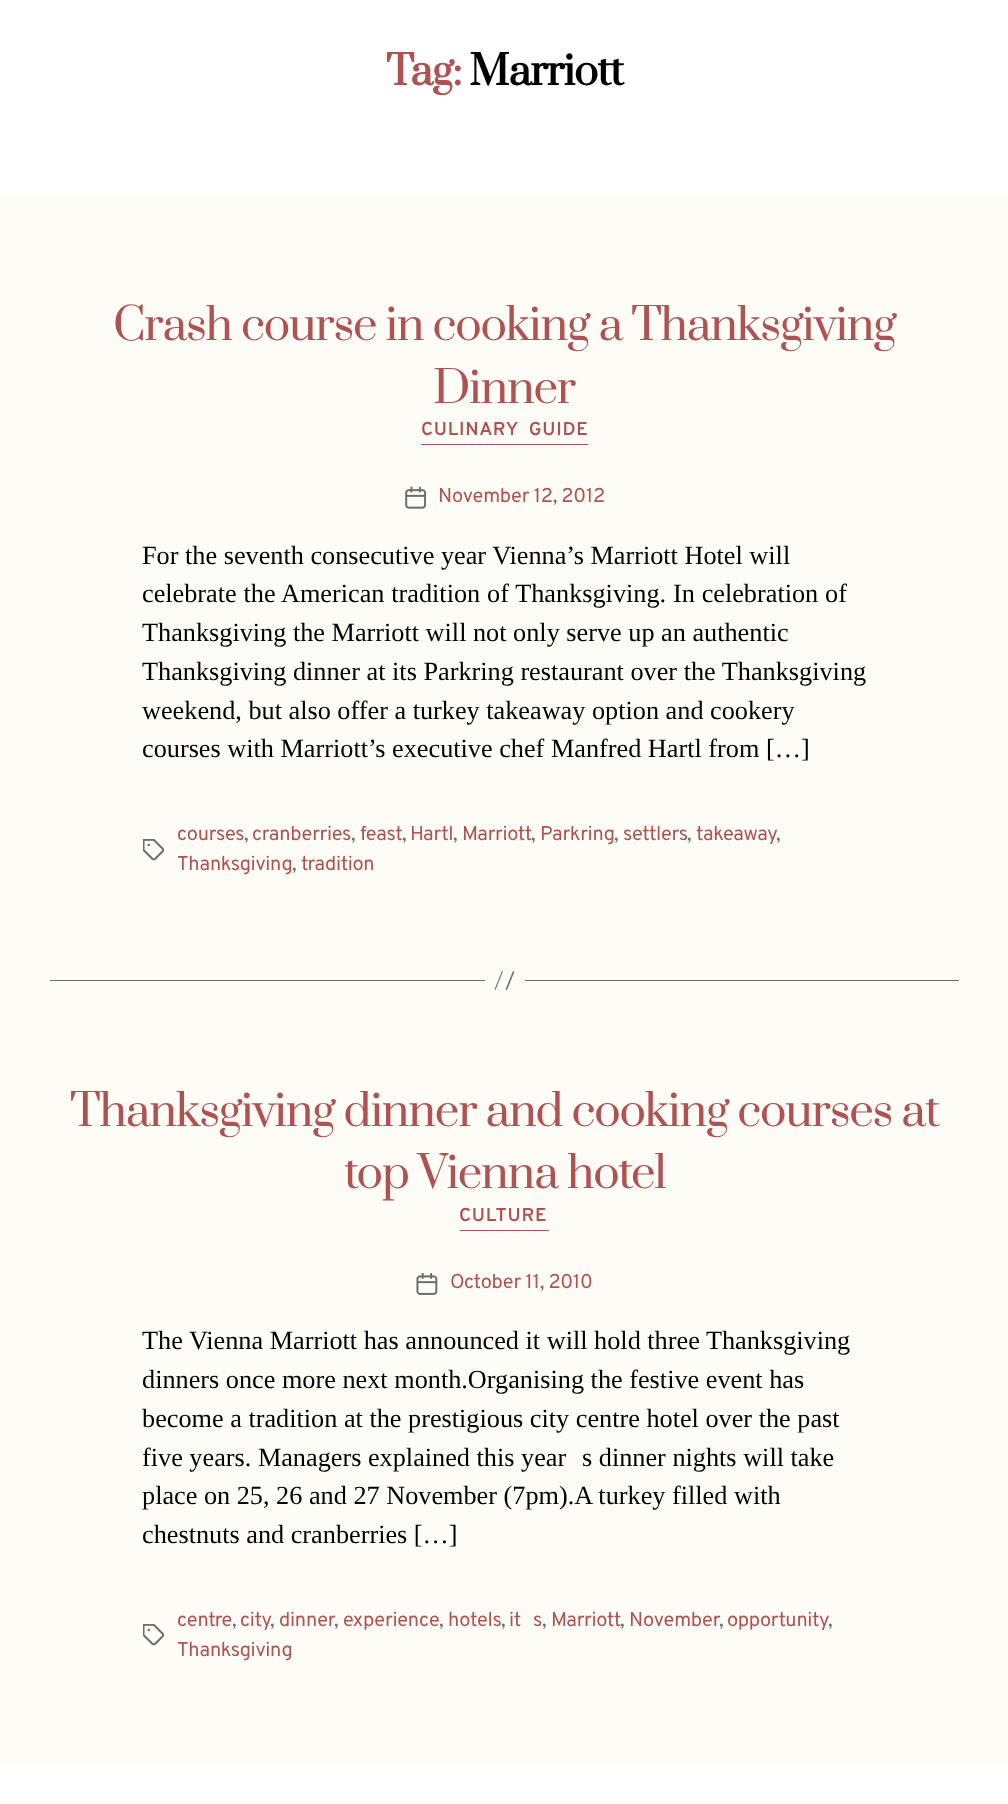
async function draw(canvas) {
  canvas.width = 1008;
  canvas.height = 1804;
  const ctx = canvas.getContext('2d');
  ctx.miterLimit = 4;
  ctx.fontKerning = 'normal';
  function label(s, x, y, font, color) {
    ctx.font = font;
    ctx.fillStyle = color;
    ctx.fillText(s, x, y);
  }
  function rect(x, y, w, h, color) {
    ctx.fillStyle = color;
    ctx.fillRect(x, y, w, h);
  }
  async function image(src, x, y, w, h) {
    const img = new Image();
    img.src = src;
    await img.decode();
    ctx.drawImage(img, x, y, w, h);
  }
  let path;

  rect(0, 0, 1008, 1804, '#fdfcf7');
  rect(0, 0, 1008, 195, '#fff');
  ctx.letterSpacing = '-1px';
  label('Tag:', 386, 85, 'bold 40px Prata', '#af5252');
  label('Marriott', 469, 85, 'bold 40px Prata', '#000');
  ctx.letterSpacing = '-1.25px';
  label('Crash course in cooking a Thanksgiving', 113, 340, '43.75px Prata', '#af5252');
  label('Dinner', 433, 403, '43.75px Prata', '#af5252');
  rect(421, 444, 167, 1, '#af5252');
  ctx.letterSpacing = '0.75px';
  ctx.wordSpacing = '5px';
  label('CULINARY GUIDE', 421, 435, '600 18.75px Overpass', '#af5252');
  await image('assets/img1.png', 405, 486, 21, 23);
  ctx.letterSpacing = '-0.3px';
  ctx.wordSpacing = '0px';
  label('November 12, 2012', 438, 502, '20px Overpass', '#af5252');
  ctx.letterSpacing = '0px';
  label('For the seventh consecutive year Vienna’s Marriott Hotel will', 142, 564, '26.25px Liberation Serif', '#000');
  ctx.wordSpacing = '0.25px';
  label('celebrate the American tradition of Thanksgiving. In celebration of', 142, 602, '26.25px Liberation Serif', '#000');
  ctx.wordSpacing = '0px';
  label('Thanksgiving the Marriott will not only serve up an authentic', 142, 641, '26.25px Liberation Serif', '#000');
  label('Thanksgiving dinner at its Parkring restaurant over the Thanksgiving', 142, 680, '26.25px Liberation Serif', '#000');
  label('weekend, but also offer a turkey takeaway option and cookery', 142, 719, '26.25px Liberation Serif', '#000');
  label('courses with Marriott’s executive chef Manfred Hartl from […]', 142, 757, '26.25px Liberation Serif', '#000');
  await image('assets/img2.png', 143, 839, 22, 22);
  ctx.letterSpacing = '-0.3px';
  label('courses', 177, 840, '20px Overpass', '#af5252');
  label(',', 244, 840, '20px Overpass', '#6d6d6d');
  label('cranberries', 252, 840, '20px Overpass', '#af5252');
  label(',', 351, 840, '20px Overpass', '#6d6d6d');
  label('feast', 360, 840, '20px Overpass', '#af5252');
  label(',', 402, 840, '20px Overpass', '#6d6d6d');
  label('Hartl', 410, 840, '20px Overpass', '#af5252');
  label(',', 453, 840, '20px Overpass', '#6d6d6d');
  label('Marriott', 462, 840, '20px Overpass', '#af5252');
  label(',', 531, 840, '20px Overpass', '#6d6d6d');
  label('Parkring', 540, 840, '20px Overpass', '#af5252');
  label(',', 614, 840, '20px Overpass', '#6d6d6d');
  label('settlers', 623, 840, '20px Overpass', '#af5252');
  label(',', 687, 840, '20px Overpass', '#6d6d6d');
  label('takeaway', 696, 840, '20px Overpass', '#af5252');
  label(',', 776, 840, '20px Overpass', '#6d6d6d');
  label('Thanksgiving', 177, 870, '20px Overpass', '#af5252');
  label(',', 292, 870, '20px Overpass', '#6d6d6d');
  label('tradition', 301, 870, '20px Overpass', '#af5252');
  rect(525, 980, 434, 1, '#6d6d6d');
  rect(50, 980, 435, 1, '#6d6d6d');
  path = new Path2D('M502 971L503 971.5L495.5 990L494.5 989.5ZM513 971L514.5 971.5L507 990L505.5 989.5Z');
  ctx.fill(path);
  ctx.letterSpacing = '-1.25px';
  label('Thanksgiving dinner and cooking courses at', 70, 1126, '43.75px Prata', '#af5252');
  label('top Vienna hotel', 344, 1188, '43.75px Prata', '#af5252');
  rect(460, 1230, 89, 1, '#af5252');
  ctx.letterSpacing = '0.75px';
  label('CULTURE', 459, 1221, '600 18.75px Overpass', '#af5252');
  await image('assets/img3.png', 416, 1273, 22, 22);
  ctx.letterSpacing = '-0.3px';
  label('October 11, 2010', 450, 1288, '20px Overpass', '#af5252');
  ctx.letterSpacing = '0px';
  label('The Vienna Marriott has announced it will hold three Thanksgiving', 142, 1349, '26.25px Liberation Serif', '#000');
  label('dinners once more next month.Organising the festive event has', 142, 1388, '26.25px Liberation Serif', '#000');
  label('become a tradition at the prestigious city centre hotel over the past', 142, 1427, '26.25px Liberation Serif', '#000');
  label('five years. Managers explained this year', 142, 1466, '26.25px Liberation Serif', '#000');
  label('s dinner nights will take', 582, 1466, '26.25px Liberation Serif', '#000');
  label('place on 25, 26 and 27 November (7pm).A turkey filled with', 142, 1504, '26.25px Liberation Serif', '#000');
  label('chestnuts and cranberries […]', 142, 1543, '26.25px Liberation Serif', '#000');
  await image('assets/img2.png', 143, 1624, 22, 22);
  ctx.letterSpacing = '-0.3px';
  label('centre', 177, 1626, '20px Overpass', '#af5252');
  label(',', 232, 1626, '20px Overpass', '#6d6d6d');
  label('city', 240, 1626, '20px Overpass', '#af5252');
  label(',', 270, 1626, '20px Overpass', '#6d6d6d');
  label('dinner', 279, 1626, '20px Overpass', '#af5252');
  label(',', 334, 1626, '20px Overpass', '#6d6d6d');
  label('experience', 343, 1626, '20px Overpass', '#af5252');
  label(',', 439, 1626, '20px Overpass', '#6d6d6d');
  label('hotels', 448, 1626, '20px Overpass', '#af5252');
  label(',', 501, 1626, '20px Overpass', '#6d6d6d');
  label('it', 509, 1626, '20px Overpass', '#af5252');
  label('s', 533, 1626, '20px Overpass', '#af5252');
  label(',', 542, 1626, '20px Overpass', '#6d6d6d');
  label('Marriott', 551, 1626, '20px Overpass', '#af5252');
  label(',', 620, 1626, '20px Overpass', '#6d6d6d');
  label('November', 629, 1626, '20px Overpass', '#af5252');
  label(',', 719, 1626, '20px Overpass', '#6d6d6d');
  label('opportunity', 727, 1626, '20px Overpass', '#af5252');
  label(',', 828, 1626, '20px Overpass', '#6d6d6d');
  label('Thanksgiving', 177, 1656, '20px Overpass', '#af5252');
  rect(0, 1765, 1008, 39, '#fff');
}

draw(document.querySelector('canvas'));
